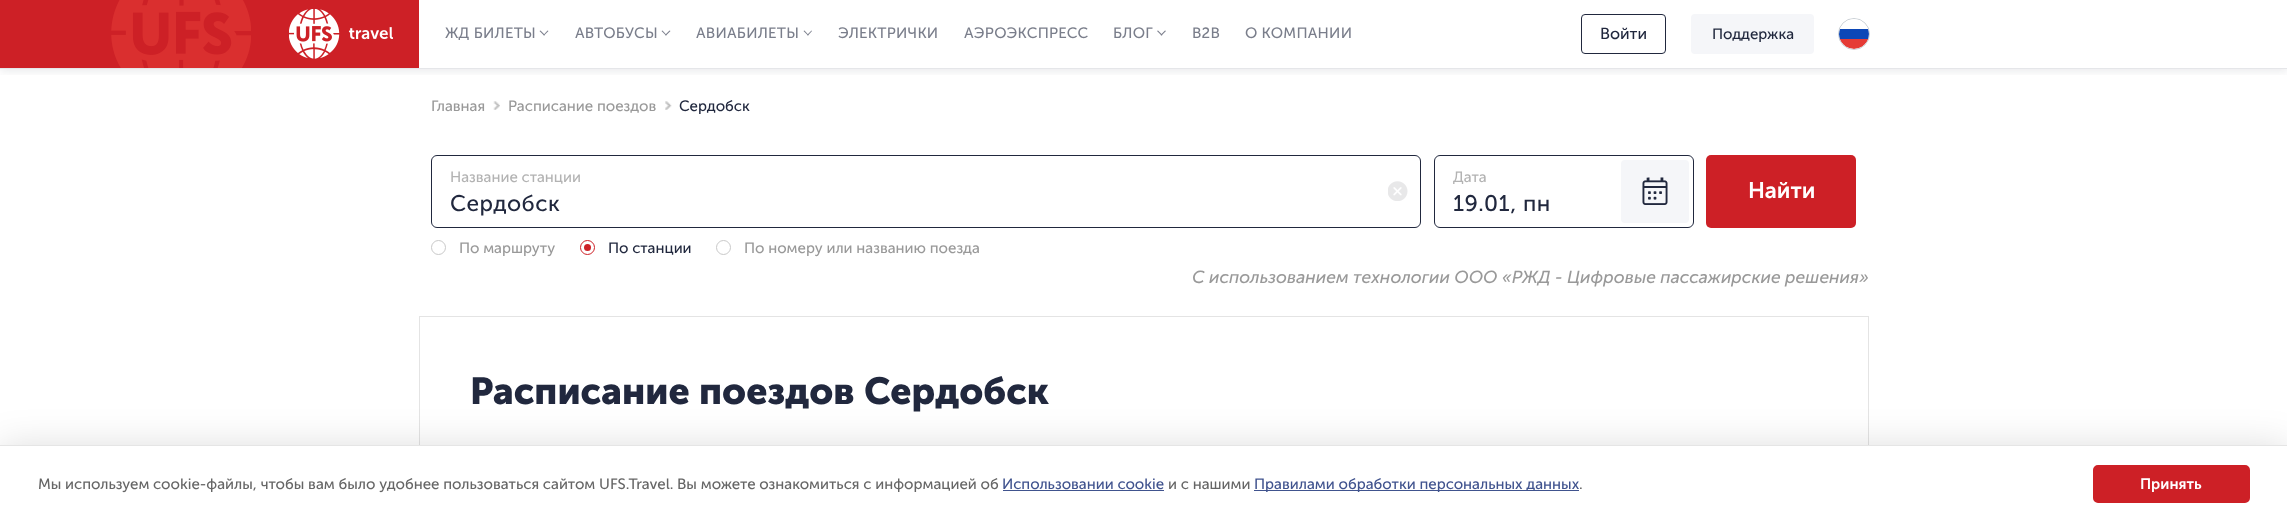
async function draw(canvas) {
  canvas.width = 2287;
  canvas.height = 521;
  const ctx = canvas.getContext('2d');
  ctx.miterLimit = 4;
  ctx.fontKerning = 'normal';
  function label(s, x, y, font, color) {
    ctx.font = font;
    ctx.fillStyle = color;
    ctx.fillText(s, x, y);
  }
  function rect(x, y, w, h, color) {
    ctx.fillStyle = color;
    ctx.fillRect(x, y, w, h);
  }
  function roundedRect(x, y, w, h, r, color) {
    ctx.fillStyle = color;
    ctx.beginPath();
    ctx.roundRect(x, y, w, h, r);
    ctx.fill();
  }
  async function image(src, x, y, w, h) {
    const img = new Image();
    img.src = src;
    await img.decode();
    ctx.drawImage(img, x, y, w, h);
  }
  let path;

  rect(0, 0, 2287, 521, '#fff');
  ctx.save();
  ctx.beginPath();
  ctx.rect(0, 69, 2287, 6);
  ctx.clip();
  ctx.fillStyle = '#21283e1a';
  ctx.filter = 'blur(5px)';
  ctx.beginPath();
  ctx.rect(0, 3, 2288, 68);
  ctx.fill();
  ctx.filter = 'none';
  ctx.restore();
  rect(0, 68, 2287, 1, '#e5e6e9');
  rect(0, 0, 419, 68, '#cd2026');
  await image('assets/img1.png', 111, 0, 140, 68);
  await image('assets/img2.png', 289, 9, 104, 50);
  ctx.letterSpacing = '0.25px';
  label('ЖД БИЛЕТЫ', 445, 38, '15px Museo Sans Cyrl', '#7a7e8b');
  path = new Path2D('M547.5 30.5L548.5 31L544 35.5L543.5 35Z');
  ctx.fill(path);
  path = new Path2D('M540.5 30.5L545 35L544 35.5L539.5 31Z');
  ctx.fill(path);
  label('АВТОБУСЫ', 575, 38, '15px Museo Sans Cyrl', '#7a7e8b');
  path = new Path2D('M669.5 30.5L670.5 31L666 35.5L665 35Z');
  ctx.fill(path);
  path = new Path2D('M662.5 30.5L666.5 35L666 35.5L661.5 31Z');
  ctx.fill(path);
  label('АВИАБИЛЕТЫ', 696, 38, '15px Museo Sans Cyrl', '#7a7e8b');
  path = new Path2D('M811.5 30.5L812 31L808 35.5L807 35Z');
  ctx.fill(path);
  path = new Path2D('M804.5 30.5L808.5 35L808 35.5L803.5 31Z');
  ctx.fill(path);
  label('ЭЛЕКТРИЧКИ', 838, 38, '15px Museo Sans Cyrl', '#7a7e8b');
  label('АЭРОЭКСПРЕСС', 964, 38, '15px Museo Sans Cyrl', '#7a7e8b');
  label('БЛОГ', 1113, 38, '15px Museo Sans Cyrl', '#7a7e8b');
  path = new Path2D('M1165 30.5L1166 31L1161.5 35.5L1160.5 35Z');
  ctx.fill(path);
  path = new Path2D('M1158 30.5L1162.5 35L1161.5 35.5L1157 31Z');
  ctx.fill(path);
  label('B2B', 1192, 38, '15px Museo Sans Cyrl', '#7a7e8b');
  label('О КОМПАНИИ', 1245, 38, '15px Museo Sans Cyrl', '#7a7e8b');
  ctx.beginPath();
  ctx.roundRect(1581.5, 14.5, 84, 39, 3.5);
  ctx.strokeStyle = '#21283e';
  ctx.stroke();
  ctx.letterSpacing = '0px';
  label('Войти', 1600, 39, '16px Museo Sans Cyrl', '#21283e');
  roundedRect(1691, 14, 123, 40, 4, '#f5f6f9');
  label('Поддержка', 1712, 39, '15px Museo Sans Cyrl', '#21283e');
  ctx.beginPath();
  ctx.arc(1854, 34, 15.5, 0, 2 * Math.PI);
  ctx.strokeStyle = '#c9cfd4';
  ctx.stroke();
  ctx.save();
  ctx.beginPath();
  ctx.roundRect(1839, 19, 30, 30, 15);
  ctx.clip();
  ctx.beginPath();
  ctx.roundRect(1839, 19, 30, 30, 15);
  ctx.clip();
  rect(1840, 19, 28, 10, '#fff');
  rect(1839, 29, 30, 10, '#0c47b7');
  rect(1840, 39, 28, 10, '#e53b35');
  ctx.restore();
  label('Главная', 431, 111, '15px Museo Sans Cyrl', '#999');
  await image('assets/img3.png', 493, 101, 7, 9);
  label('Расписание поездов', 508, 111, '15px Museo Sans Cyrl', '#999');
  await image('assets/img4.png', 665, 101, 7, 9);
  label('Сердобск', 679, 111, '15px Museo Sans Cyrl', '#21283e');
  ctx.beginPath();
  ctx.roundRect(431.5, 155.5, 989, 72, 5.5);
  ctx.strokeStyle = '#21283e';
  ctx.stroke();
  label('Название станции', 450, 182, '15px Museo Sans Cyrl', '#b3b3b3');
  await image('assets/img5.png', 1388, 181, 20, 20);
  ctx.letterSpacing = '0.5px';
  label('Сердобск', 450, 211, '22.5px Museo Sans Cyrl', '#21283e');
  ctx.beginPath();
  ctx.roundRect(1434.5, 155.5, 259, 72, 5.5);
  ctx.stroke();
  ctx.letterSpacing = '0px';
  label('Дата', 1453, 182, '15px Museo Sans Cyrl', '#b3b3b3');
  roundedRect(1621, 160, 68, 63, 4, '#f5f6f9');
  await image('assets/img6.png', 1642, 177, 26, 28);
  ctx.letterSpacing = '0.5px';
  label('19.01, пн', 1453, 211, '22.5px Museo Sans Cyrl', '#21283e');
  roundedRect(1706, 155, 150, 73, 5, '#cd2026');
  ctx.letterSpacing = '0px';
  label('Найти', 1748, 198, '600 22.5px Museo Sans Cyrl', '#fff');
  ctx.beginPath();
  ctx.arc(438.5, 247.5, 7, 0, 2 * Math.PI);
  ctx.strokeStyle = '#c9c9c9';
  ctx.stroke();
  label('По маршруту', 459, 253, '15px Museo Sans Cyrl', '#999');
  ctx.beginPath();
  ctx.arc(587.5, 247.5, 7, 0, 2 * Math.PI);
  ctx.strokeStyle = '#cd2026';
  ctx.stroke();
  ctx.fillStyle = '#cd2026';
  ctx.beginPath();
  ctx.arc(587.5, 247.5, 3.5, 0, 2 * Math.PI);
  ctx.fill();
  label('По станции', 608, 253, '15px Museo Sans Cyrl', '#21283e');
  ctx.beginPath();
  ctx.arc(723.5, 247.5, 7, 0, 2 * Math.PI);
  ctx.strokeStyle = '#c9c9c9';
  ctx.stroke();
  label('По номеру или названию поезда', 744, 253, '15px Museo Sans Cyrl', '#999');
  label('С использованием технологии ООО «РЖД - Цифровые пассажирские решения»', 1192, 283, 'italic 17.5px Museo Sans Cyrl', '#999');
  ctx.strokeStyle = '#e4e4e4';
  ctx.strokeRect(419.5, 316.5, 1449, 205);
  label('Расписание поездов Сердобск', 470, 404, 'bold 37.5px Museo Sans Cyrl', '#21283e');
  ctx.fillStyle = '#00000026';
  ctx.filter = 'blur(19px)';
  ctx.beginPath();
  ctx.rect(0, 448, 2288, 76);
  ctx.fill();
  ctx.filter = 'none';
  rect(0, 446, 2287, 75, '#fff');
  rect(0, 445, 2287, 1, '#e5e5e5');
  label('Мы используем cookie-файлы, чтобы вам было удобнее пользоваться сайтом UFS.Travel. Вы можете ознакомиться с информацией об', 38, 489, '15px Museo Sans Cyrl', '#666');
  label('Использовании cookie', 1002, 489, '15px Museo Sans Cyrl', '#40538e');
  rect(1003, 490, 161, 1, '#40538e');
  label('и с нашими', 1168, 489, '15px Museo Sans Cyrl', '#666');
  rect(1254, 490, 325, 1, '#40538e');
  label('Правилами обработки персональных данных', 1254, 489, '15px Museo Sans Cyrl', '#40538e');
  label('.', 1579, 489, '15px Museo Sans Cyrl', '#666');
  ctx.fillStyle = '#cd2026';
  ctx.beginPath();
  ctx.roundRect(2094.5, 466.5, 154, 35, 3.5);
  ctx.fill();
  ctx.strokeStyle = '#cd2026';
  ctx.lineWidth = 3;
  ctx.stroke();
  label('Принять', 2140, 489, '600 15px Museo Sans Cyrl', '#fff');
}

draw(document.querySelector('canvas'));
